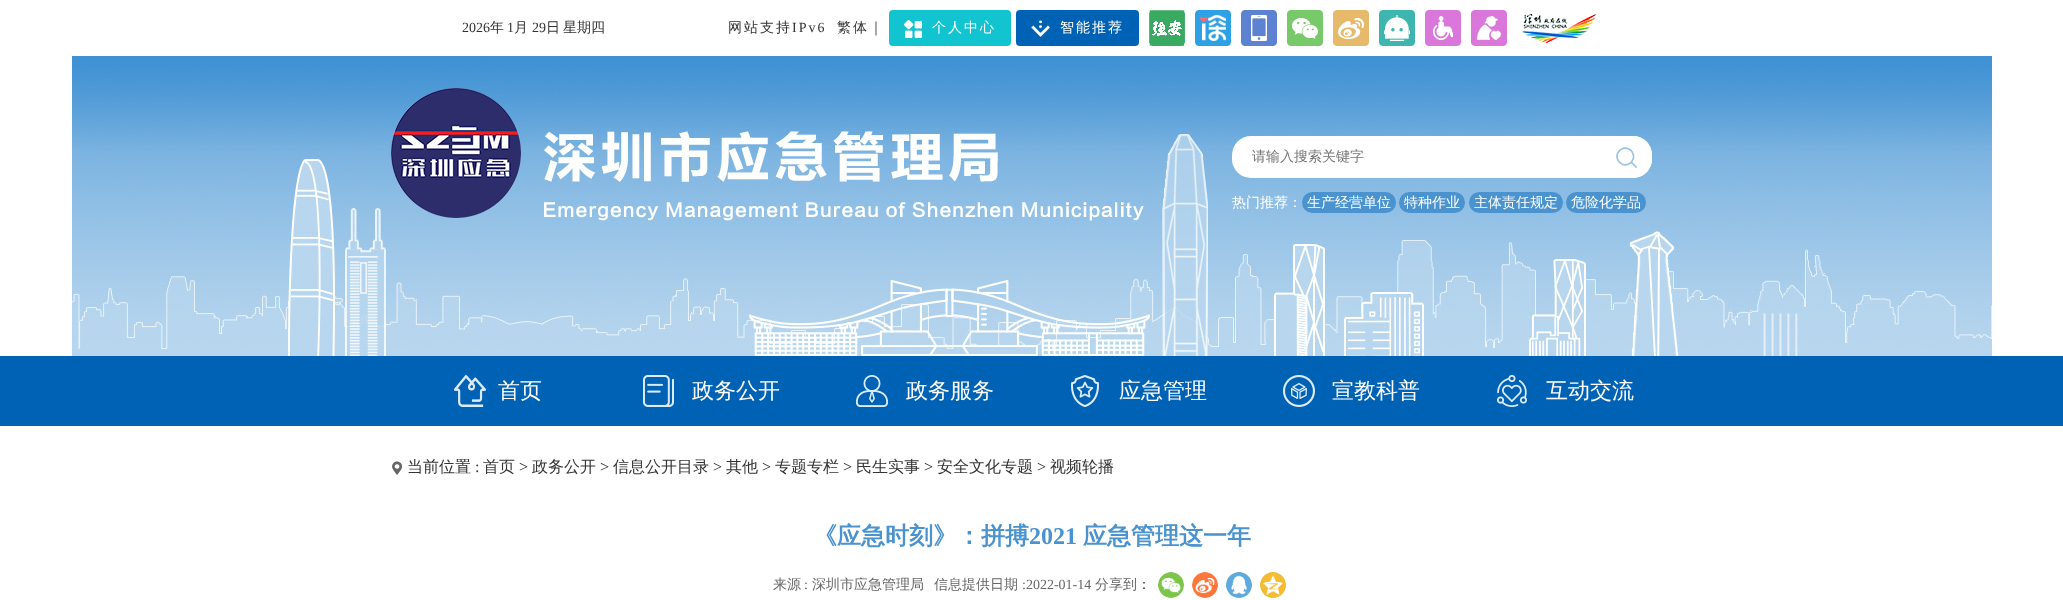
async function draw(canvas) {
  canvas.width = 2063;
  canvas.height = 600;
  const ctx = canvas.getContext('2d');
  ctx.miterLimit = 4;
  ctx.fontKerning = 'normal';
  function label(s, x, y, font, color) {
    ctx.font = font;
    ctx.fillStyle = color;
    ctx.fillText(s, x, y);
  }
  function rect(x, y, w, h, color) {
    ctx.fillStyle = color;
    ctx.fillRect(x, y, w, h);
  }
  function roundedRect(x, y, w, h, r, color) {
    ctx.fillStyle = color;
    ctx.beginPath();
    ctx.roundRect(x, y, w, h, r);
    ctx.fill();
  }
  async function image(src, x, y, w, h) {
    const img = new Image();
    img.src = src;
    await img.decode();
    ctx.drawImage(img, x, y, w, h);
  }

  rect(0, 0, 2063, 600, '#fff');
  label('2026', 462, 32, '14px Liberation Serif', '#333');
  label('年', 490, 32, '500 14px WenQuanYi Zen Hei', '#333');
  label('1', 507, 32, '14px Liberation Serif', '#333');
  label('月', 514, 32, '500 14px WenQuanYi Zen Hei', '#333');
  label('29', 532, 32, '14px Liberation Serif', '#333');
  label('日', 546, 32, '500 14px WenQuanYi Zen Hei', '#333');
  label('星期四', 563, 32, '500 14px WenQuanYi Zen Hei', '#333');
  ctx.letterSpacing = '2px';
  label('网站支持', 728, 32, '500 14px WenQuanYi Zen Hei', '#333');
  label('IPv6', 792, 32, '14px Liberation Serif', '#333');
  label('繁体｜', 837, 32, '500 14px WenQuanYi Zen Hei', '#333');
  roundedRect(889, 10, 122, 36, 4, '#12c4d0');
  await image('assets/img1.png', 904, 20, 18, 18);
  label('个人中心', 932, 32, '500 14px WenQuanYi Zen Hei', '#fff');
  roundedRect(1016, 10, 123, 36, 4, '#0062b4');
  await image('assets/img2.png', 1031, 20, 19, 17);
  label('智能推荐', 1060, 32, '500 14px WenQuanYi Zen Hei', '#fff');
  await image('assets/img3.png', 1149, 10, 36, 36);
  await image('assets/img4.png', 1195, 10, 36, 36);
  await image('assets/img5.png', 1241, 10, 36, 36);
  await image('assets/img6.png', 1287, 10, 36, 36);
  await image('assets/img7.png', 1333, 10, 36, 36);
  await image('assets/img8.png', 1379, 10, 36, 36);
  await image('assets/img9.png', 1425, 10, 36, 36);
  await image('assets/img10.png', 1471, 10, 36, 36);
  await image('assets/img11.png', 1522, 14, 74, 29);
  await image('assets/img12.png', 72, 56, 1920, 300);
  roundedRect(1232, 136, 420, 42, 19, '#fff');
  ctx.letterSpacing = '0px';
  label('请输入搜索关键字', 1252, 161, '500 14px WenQuanYi Zen Hei', '#757575');
  roundedRect(1602, 136, 50, 42, 19, '#fff');
  await image('assets/img13.png', 1616, 147, 21, 21);
  label('热门推荐：', 1232, 207, '500 14px WenQuanYi Zen Hei', '#fff');
  roundedRect(1302, 192, 94, 21, 10.5, '#4a93ce');
  label('生产经营单位', 1307, 207, '500 14px WenQuanYi Zen Hei', '#fff');
  roundedRect(1399, 192, 66, 21, 10.5, '#4a93ce');
  label('特种作业', 1404, 207, '500 14px WenQuanYi Zen Hei', '#fff');
  roundedRect(1469, 192, 94, 21, 10.5, '#4a93ce');
  label('主体责任规定', 1474, 207, '500 14px WenQuanYi Zen Hei', '#fff');
  roundedRect(1566, 192, 80, 21, 10.5, '#4a93ce');
  label('危险化学品', 1571, 207, '500 14px WenQuanYi Zen Hei', '#fff');
  rect(0, 356, 2063, 70, '#0062b4');
  await image('assets/img14.png', 454, 375, 32, 32);
  label('首页', 498, 398, '500 22px WenQuanYi Zen Hei', '#fff');
  await image('assets/img15.png', 643, 375, 31, 32);
  label('政务公开', 692, 398, '500 22px WenQuanYi Zen Hei', '#fff');
  await image('assets/img16.png', 856, 375, 32, 32);
  label('政务服务', 906, 398, '500 22px WenQuanYi Zen Hei', '#fff');
  await image('assets/img17.png', 1071, 375, 28, 32);
  label('应急管理', 1119, 398, '500 22px WenQuanYi Zen Hei', '#fff');
  await image('assets/img18.png', 1283, 375, 32, 32);
  label('宣教科普', 1332, 398, '500 22px WenQuanYi Zen Hei', '#fff');
  await image('assets/img19.png', 1497, 375, 30, 32);
  label('互动交流', 1546, 398, '500 22px WenQuanYi Zen Hei', '#fff');
  await image('assets/img20.png', 392, 461, 10, 14);
  label('当前位置', 407, 472, '500 16px WenQuanYi Zen Hei', '#333');
  label(':', 475, 472, '16px Liberation Serif', '#333');
  label('首页', 483, 472, '500 16px WenQuanYi Zen Hei', '#333');
  label('>', 519, 472, '16px Liberation Serif', '#333');
  label('政务公开', 532, 472, '500 16px WenQuanYi Zen Hei', '#333');
  label('>', 600, 472, '16px Liberation Serif', '#333');
  label('信息公开目录', 613, 472, '500 16px WenQuanYi Zen Hei', '#333');
  label('>', 713, 472, '16px Liberation Serif', '#333');
  label('其他', 726, 472, '500 16px WenQuanYi Zen Hei', '#333');
  label('>', 762, 472, '16px Liberation Serif', '#333');
  label('专题专栏', 775, 472, '500 16px WenQuanYi Zen Hei', '#333');
  label('>', 843, 472, '16px Liberation Serif', '#333');
  label('民生实事', 856, 472, '500 16px WenQuanYi Zen Hei', '#333');
  label('>', 924, 472, '16px Liberation Serif', '#333');
  label('安全文化专题', 937, 472, '500 16px WenQuanYi Zen Hei', '#333');
  label('>', 1037, 472, '16px Liberation Serif', '#333');
  label('视频轮播', 1050, 472, '500 16px WenQuanYi Zen Hei', '#333');
  label('《应急时刻》：拼搏', 813, 544, 'bold 24px WenQuanYi Zen Hei', '#4a93ce');
  label('2021', 1029, 544, 'bold 24px Liberation Serif', '#4a93ce');
  label('应急管理这一年', 1083, 544, 'bold 24px WenQuanYi Zen Hei', '#4a93ce');
  label('来源', 773, 589, '500 14px WenQuanYi Zen Hei', '#666');
  label(':', 804, 589, '14px Liberation Serif', '#666');
  label('深圳市应急管理局', 812, 589, '500 14px WenQuanYi Zen Hei', '#666');
  label('信息提供日期', 934, 589, '500 14px WenQuanYi Zen Hei', '#666');
  label(':2022-01-14', 1022, 589, '14px Liberation Serif', '#666');
  label('分享到', 1095, 589, '500 14px WenQuanYi Zen Hei', '#666');
  label('：', 1137, 589, '500 14px WenQuanYi Zen Hei', '#333');
  await image('assets/img21.png', 1158, 572, 26, 26);
  await image('assets/img22.png', 1192, 572, 26, 26);
  await image('assets/img23.png', 1226, 572, 26, 26);
  await image('assets/img24.png', 1260, 572, 26, 26);
}

draw(document.querySelector('canvas'));
